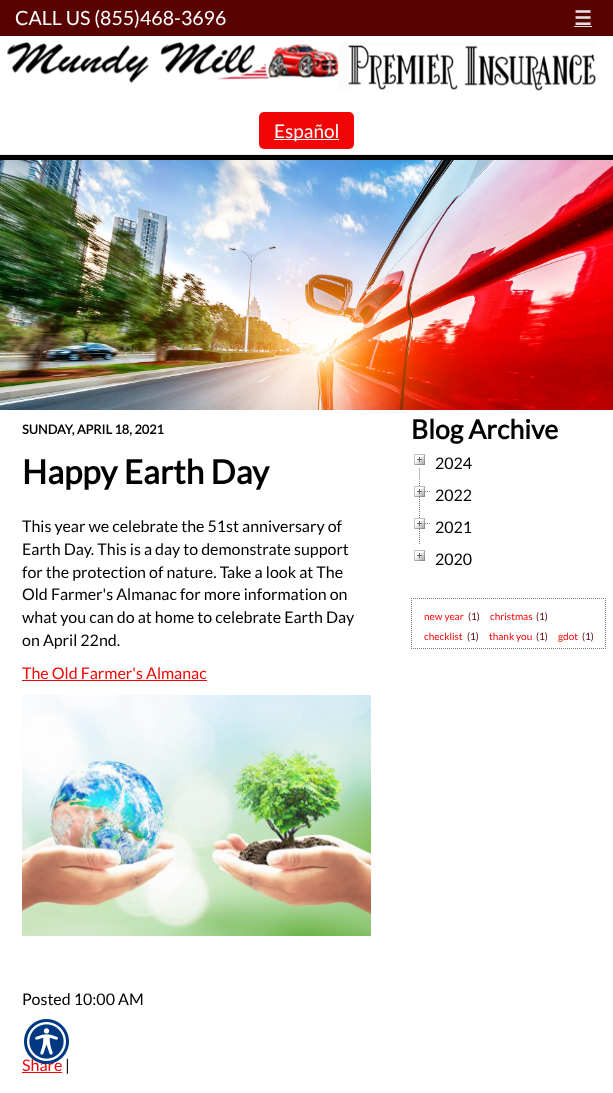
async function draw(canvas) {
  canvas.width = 613;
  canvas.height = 1093;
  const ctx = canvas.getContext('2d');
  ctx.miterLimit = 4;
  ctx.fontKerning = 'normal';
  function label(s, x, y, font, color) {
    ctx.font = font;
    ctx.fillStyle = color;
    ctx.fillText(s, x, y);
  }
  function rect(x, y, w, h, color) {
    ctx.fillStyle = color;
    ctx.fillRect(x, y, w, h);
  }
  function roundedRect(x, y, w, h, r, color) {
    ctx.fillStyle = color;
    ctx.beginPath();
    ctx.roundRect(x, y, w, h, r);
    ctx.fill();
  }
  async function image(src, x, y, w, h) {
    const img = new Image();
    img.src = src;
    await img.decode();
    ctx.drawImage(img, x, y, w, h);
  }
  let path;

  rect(0, 0, 613, 1093, '#fff');
  rect(0, 155, 613, 5, '#000');
  rect(0, 0, 613, 36, '#590202');
  label('CALL US (855)468-3696', 15, 25, '19.6px Lato', '#fff');
  label('☰', 574, 25, 'bold 19.6px DejaVu Sans', '#e2e2e2');
  rect(574, 26, 18, 1, '#e2e2e2');
  await image('assets/img1.png', 7, 42, 589, 49);
  roundedRect(259, 112, 95, 37, 5, '#f20505');
  rect(274, 139, 65, 1, '#fff');
  label('Español', 274, 138, '19px Lato', '#fff');
  rect(0, 154, 613, 1, '#ececec');
  await image('assets/img2.png', 0, 160, 613, 250);
  label('SUNDAY, APRIL 18, 2021', 22, 434, 'bold 12.75px Lato', '#000');
  label('Happy Earth Day', 22, 484, 'bold 33.25px Lato', '#000');
  label('This year we celebrate the 51st anniversary of', 22, 532, '16px Lato', '#000');
  label('Earth Day. This is a day to demonstrate support', 22, 555, '16px Lato', '#000');
  label('for the protection of nature. Take a look at The', 22, 578, '16px Lato', '#000');
  label('Old Farmer\'s Almanac for more information on', 22, 600, '16px Lato', '#000');
  label('what you can do at home to celebrate Earth Day', 22, 623, '16px Lato', '#000');
  label('on April 22nd.', 22, 646, '16px Lato', '#000');
  label('The Old Farmer\'s Almanac', 22, 679, '16px Lato', '#f20505');
  rect(22, 680, 185, 1, '#f20505');
  await image('assets/img3.png', 22, 695, 349, 241);
  label('Posted 10:00 AM', 22, 1005, '16px Lato', '#000');
  label('Share', 22, 1071, '16px Lato', '#f20505');
  rect(22, 1072, 40, 1, '#f20505');
  label('|', 65, 1071, '16px Lato', '#000');
  label('Blog Archive', 411, 439, 'bold 26.5px Lato', '#000');
  await image('assets/img4.png', 419, 468, 1, 12);
  await image('assets/img5.png', 414, 454, 11, 11);
  label('2024', 435, 469, '16px Lato', '#000');
  await image('assets/img6.png', 419, 481, 1, 31);
  await image('assets/img7.png', 425, 491, 5, 1);
  await image('assets/img5.png', 414, 486, 11, 11);
  label('2022', 435, 501, '16px Lato', '#000');
  await image('assets/img6.png', 419, 513, 1, 31);
  await image('assets/img7.png', 425, 523, 5, 1);
  await image('assets/img5.png', 414, 518, 11, 11);
  label('2021', 435, 533, '16px Lato', '#000');
  await image('assets/img5.png', 414, 550, 11, 11);
  label('2020', 435, 565, '16px Lato', '#000');
  path = new Path2D('M411 598.5H606');
  ctx.strokeStyle = '#7f7f7f';
  ctx.setLineDash([1, 1]);
  ctx.stroke(path);
  path = new Path2D('M605.5 598V649');
  ctx.stroke(path);
  path = new Path2D('M411 648.5H606');
  ctx.stroke(path);
  path = new Path2D('M411.5 598V649');
  ctx.stroke(path);
  label('new year', 424, 620, '10px Lato', '#f20505');
  label('(1)', 468, 620, '10px Lato', '#590202');
  label('christmas', 490, 620, '10px Lato', '#f20505');
  label('(1)', 536, 620, '10px Lato', '#590202');
  label('checklist', 424, 640, '10px Lato', '#f20505');
  label('(1)', 467, 640, '10px Lato', '#590202');
  label('thank you', 489, 640, '10px Lato', '#f20505');
  label('(1)', 536, 640, '10px Lato', '#590202');
  label('gdot', 558, 640, '10px Lato', '#f20505');
  label('(1)', 582, 640, '10px Lato', '#590202');
  await image('assets/img8.png', 24, 1019, 45, 45);
}

draw(document.querySelector('canvas'));
